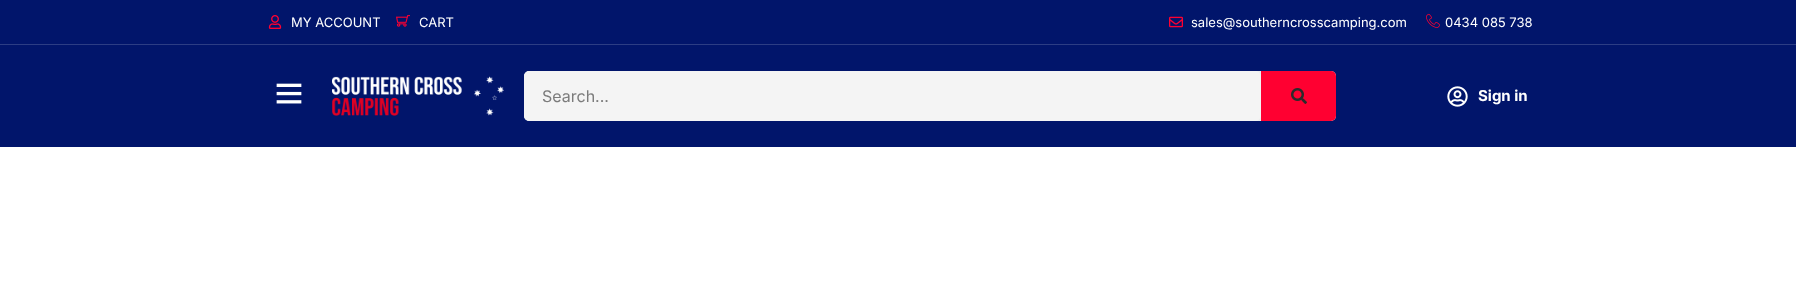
async function draw(canvas) {
  canvas.width = 1796;
  canvas.height = 303;
  const ctx = canvas.getContext('2d');
  ctx.miterLimit = 4;
  ctx.fontKerning = 'normal';
  function label(s, x, y, font, color) {
    ctx.font = font;
    ctx.fillStyle = color;
    ctx.fillText(s, x, y);
  }
  function rect(x, y, w, h, color) {
    ctx.fillStyle = color;
    ctx.fillRect(x, y, w, h);
  }
  function roundedRect(x, y, w, h, r, color) {
    ctx.fillStyle = color;
    ctx.beginPath();
    ctx.roundRect(x, y, w, h, r);
    ctx.fill();
  }
  async function image(src, x, y, w, h) {
    const img = new Image();
    img.src = src;
    await img.decode();
    ctx.drawImage(img, x, y, w, h);
  }

  rect(0, 0, 1796, 303, '#fff');
  rect(0, 0, 1796, 44, '#01156b');
  rect(0, 44, 1796, 1, '#2c3d84');
  await image('assets/img1.png', 268, 15, 14, 14);
  label('MY ACCOUNT', 291, 27, '13px Inter', '#fff');
  await image('assets/img2.png', 396, 15, 14, 12);
  label('CART', 419, 27, '13px Inter', '#fff');
  await image('assets/img3.png', 1169, 16, 14, 12);
  label('sales@southerncrosscamping.com', 1191, 27, '13px Inter', '#fff');
  await image('assets/img4.png', 1426, 13, 14, 15);
  label('0434 085 738', 1445, 27, '13px Inter', '#fff');
  rect(0, 45, 1796, 102, '#01156b');
  await image('assets/img5.png', 276, 83, 26, 21);
  await image('assets/img6.png', 332, 76, 172, 40);
  roundedRect(524, 71, 812, 50, 5, '#eceeef');
  ctx.fillStyle = '#f4f4f4';
  ctx.beginPath();
  ctx.roundRect(524.5, 71.5, 736, 49, 4.5);
  ctx.fill();
  ctx.strokeStyle = '#f4f4f4';
  ctx.stroke();
  label('Search...', 542, 102, '16px Inter', '#7b7b7b');
  ctx.fillStyle = '#ff0031';
  ctx.beginPath();
  ctx.roundRect(1261, 71, 75, 50, [0, 5, 5, 0]);
  ctx.fill();
  await image('assets/img7.png', 1291, 88, 16, 16);
  await image('assets/img8.png', 1447, 86, 21, 21);
  label('Sign in', 1478, 101, 'bold 15px Inter', '#fff');
}

draw(document.querySelector('canvas'));
